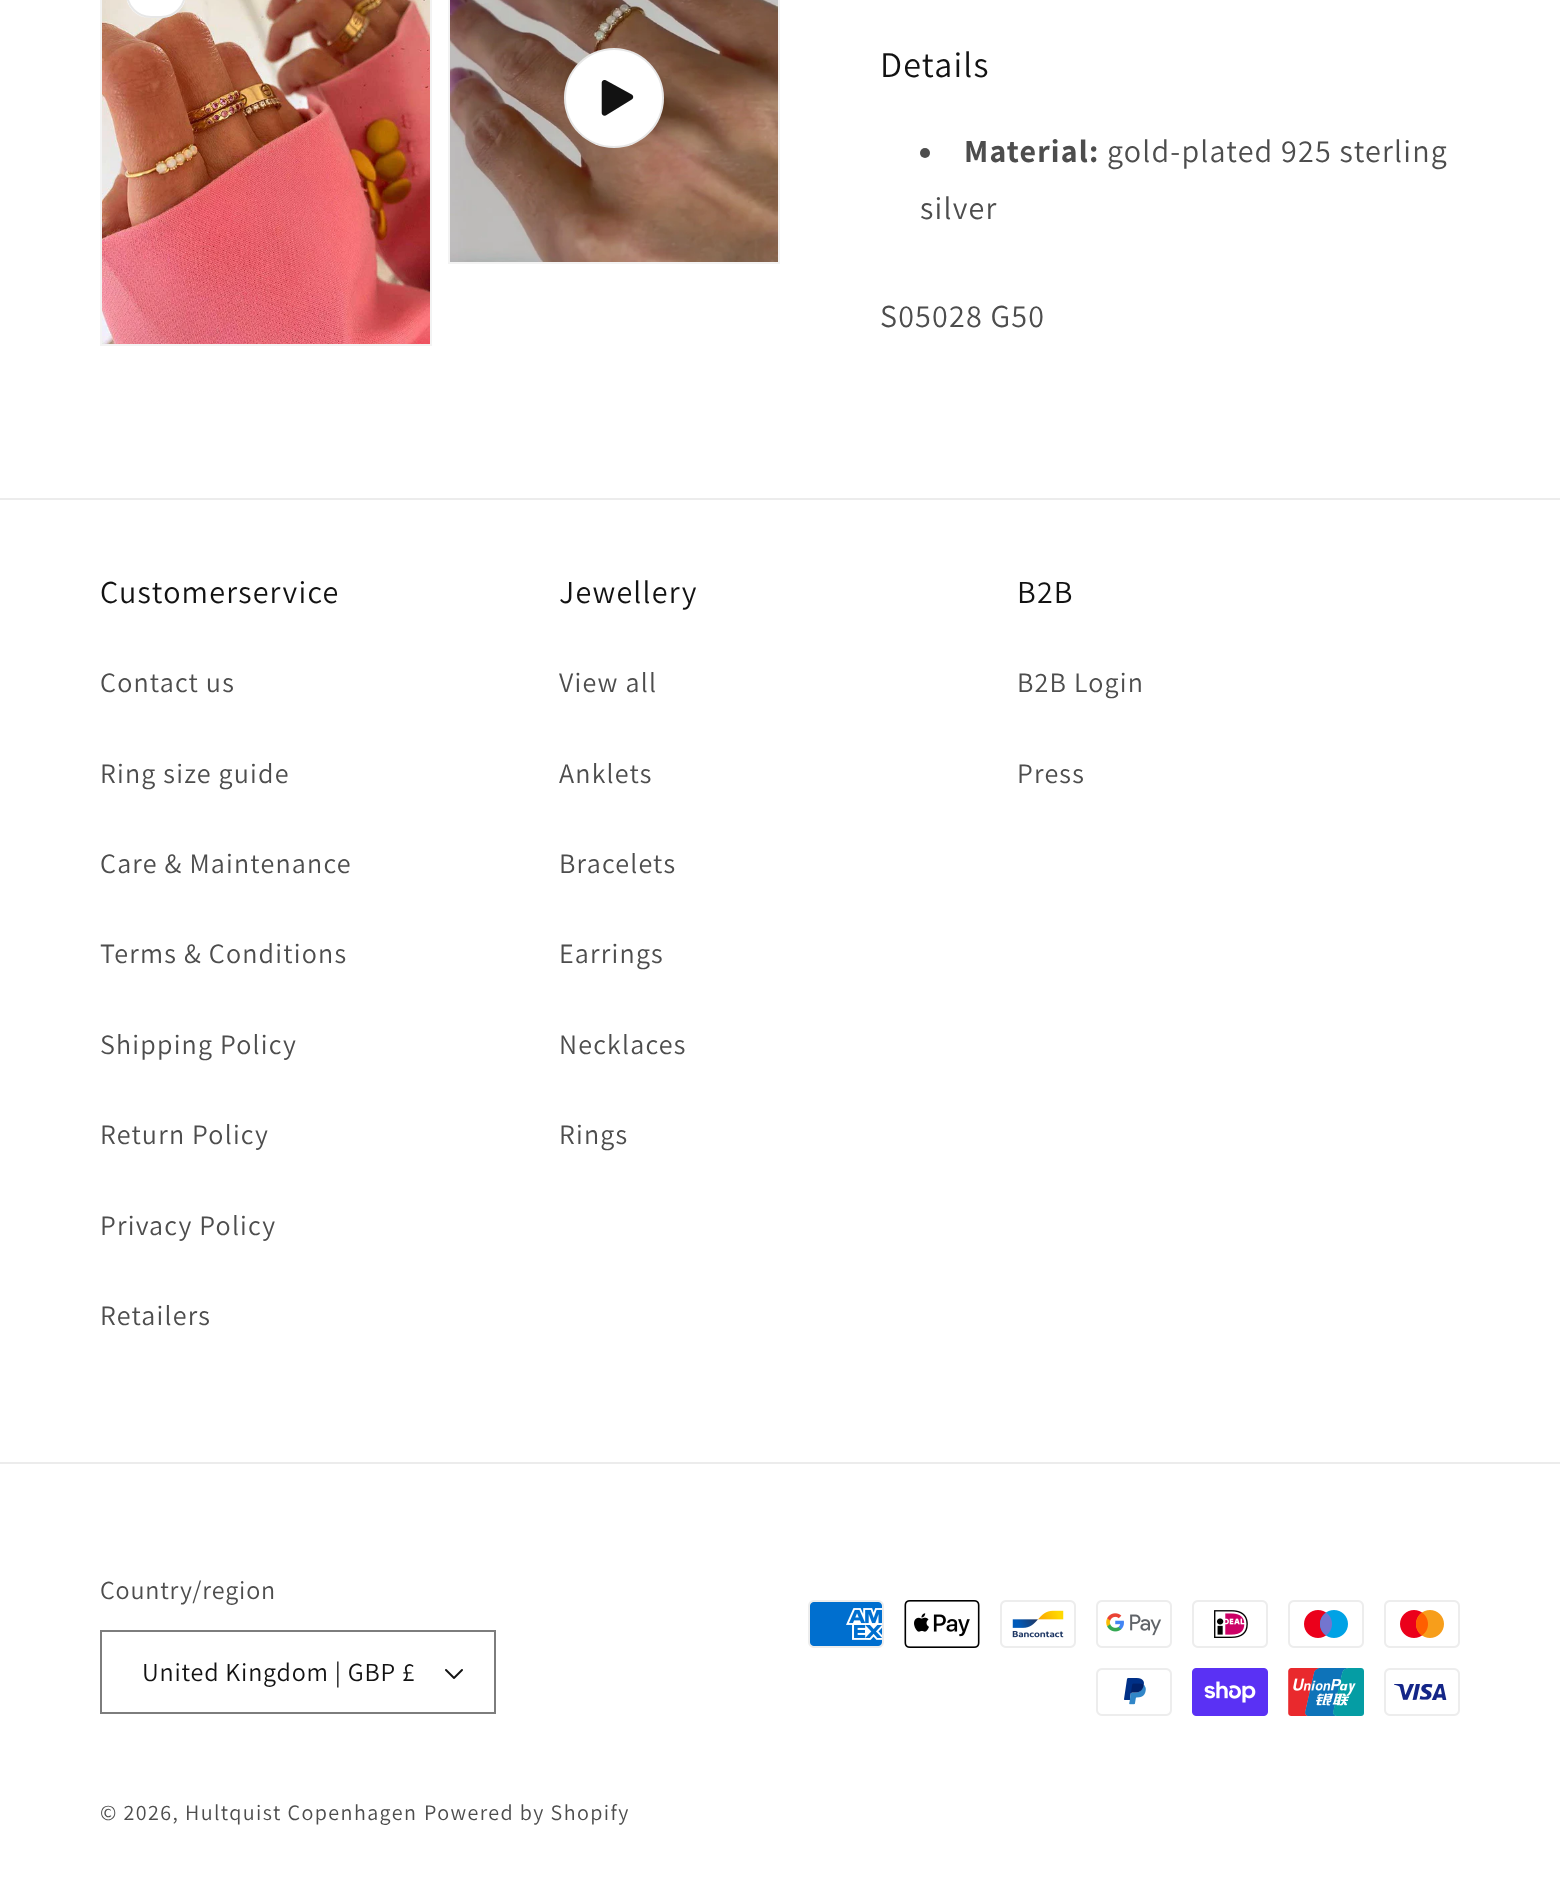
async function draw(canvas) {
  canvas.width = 1560;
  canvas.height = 1901;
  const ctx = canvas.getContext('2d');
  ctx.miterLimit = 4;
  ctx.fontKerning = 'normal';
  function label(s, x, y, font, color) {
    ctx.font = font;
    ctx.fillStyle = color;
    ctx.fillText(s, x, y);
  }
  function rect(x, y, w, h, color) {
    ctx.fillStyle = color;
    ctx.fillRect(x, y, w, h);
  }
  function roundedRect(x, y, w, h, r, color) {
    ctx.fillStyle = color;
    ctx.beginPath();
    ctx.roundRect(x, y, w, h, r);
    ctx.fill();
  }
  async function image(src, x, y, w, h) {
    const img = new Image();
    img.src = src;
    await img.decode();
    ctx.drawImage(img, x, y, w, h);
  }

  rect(0, 0, 1560, 1901, '#fff');
  ctx.strokeStyle = '#f3f3f3';
  ctx.lineWidth = 2;
  ctx.strokeRect(101, -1, 330, 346);
  await image('assets/img1.png', 102, 0, 328, 344);
  roundedRect(126, -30, 60, 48, 30, '#fff');
  ctx.beginPath();
  ctx.roundRect(127, -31, 58, 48, 29);
  ctx.strokeStyle = '#1212121a';
  ctx.stroke();
  ctx.strokeStyle = '#f3f3f3';
  ctx.strokeRect(449, -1, 330, 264);
  await image('assets/img2.png', 450, 0, 328, 262);
  ctx.beginPath();
  ctx.arc(614, 98, 50, 0, 2 * Math.PI);
  ctx.fill();
  ctx.beginPath();
  ctx.arc(614, 98, 49, 0, 2 * Math.PI);
  ctx.strokeStyle = '#1212121a';
  ctx.stroke();
  await image('assets/img3.png', 601, 80, 33, 36);
  ctx.letterSpacing = '1.2px';
  label('Details', 880, 77, '36px Assistant', '#121212');
  ctx.fillStyle = '#4d4d4d';
  ctx.beginPath();
  ctx.arc(925, 153, 5, 0, 2 * Math.PI);
  ctx.fill();
  label('Material:', 964, 162, 'bold 32px Assistant', '#4d4d4d');
  label('gold-plated 925 sterling', 1107, 162, '32px Assistant', '#4d4d4d');
  label('silver', 920, 219, '32px Assistant', '#4d4d4d');
  label('S05028 G50', 880, 327, '32px Assistant', '#4d4d4d');
  rect(0, 498, 1560, 2, '#ececec');
  label('Customerservice', 100, 603, '32px Assistant', '#121212');
  label('Contact us', 100, 692, '28px Assistant', '#4d4d4d');
  label('Ring size guide', 100, 783, '28px Assistant', '#4d4d4d');
  label('Care & Maintenance', 100, 873, '28px Assistant', '#4d4d4d');
  label('Terms & Conditions', 100, 963, '28px Assistant', '#4d4d4d');
  label('Shipping Policy', 100, 1054, '28px Assistant', '#4d4d4d');
  label('Return Policy', 100, 1144, '28px Assistant', '#4d4d4d');
  label('Privacy Policy', 100, 1235, '28px Assistant', '#4d4d4d');
  label('Retailers', 100, 1325, '28px Assistant', '#4d4d4d');
  label('Jewellery', 559, 603, '32px Assistant', '#121212');
  label('View all', 559, 692, '28px Assistant', '#4d4d4d');
  label('Anklets', 559, 783, '28px Assistant', '#4d4d4d');
  label('Bracelets', 559, 873, '28px Assistant', '#4d4d4d');
  label('Earrings', 559, 963, '28px Assistant', '#4d4d4d');
  label('Necklaces', 559, 1054, '28px Assistant', '#4d4d4d');
  label('Rings', 559, 1144, '28px Assistant', '#4d4d4d');
  label('B2B', 1017, 603, '32px Assistant', '#121212');
  label('B2B Login', 1017, 692, '28px Assistant', '#4d4d4d');
  label('Press', 1017, 783, '28px Assistant', '#4d4d4d');
  rect(0, 1462, 1560, 2, '#ececec');
  ctx.letterSpacing = '0.8px';
  label('Country/region', 100, 1599, '26px Assistant', '#4d4d4d');
  await image('assets/img4.png', 445, 1669, 18, 10);
  ctx.strokeStyle = '#7d7d7d';
  ctx.strokeRect(101, 1631, 394, 82);
  label('United Kingdom | GBP £', 142, 1681, '26px Assistant', '#121212');
  await image('assets/img5.png', 808, 1600, 76, 48);
  await image('assets/img6.png', 904, 1600, 76, 48);
  await image('assets/img7.png', 1000, 1600, 76, 48);
  await image('assets/img8.png', 1096, 1600, 76, 48);
  await image('assets/img9.png', 1192, 1600, 76, 48);
  await image('assets/img10.png', 1288, 1600, 76, 48);
  await image('assets/img11.png', 1384, 1600, 76, 48);
  await image('assets/img12.png', 1096, 1668, 76, 48);
  await image('assets/img13.png', 1192, 1668, 76, 48);
  await image('assets/img14.png', 1288, 1668, 76, 48);
  await image('assets/img15.png', 1384, 1668, 76, 48);
  ctx.letterSpacing = '1.4px';
  label('© 2026, Hultquist Copenhagen', 100, 1820, '22px Assistant', '#4d4d4d');
  label('Powered by Shopify', 424, 1820, '22px Assistant', '#4d4d4d');
}

draw(document.querySelector('canvas'));
